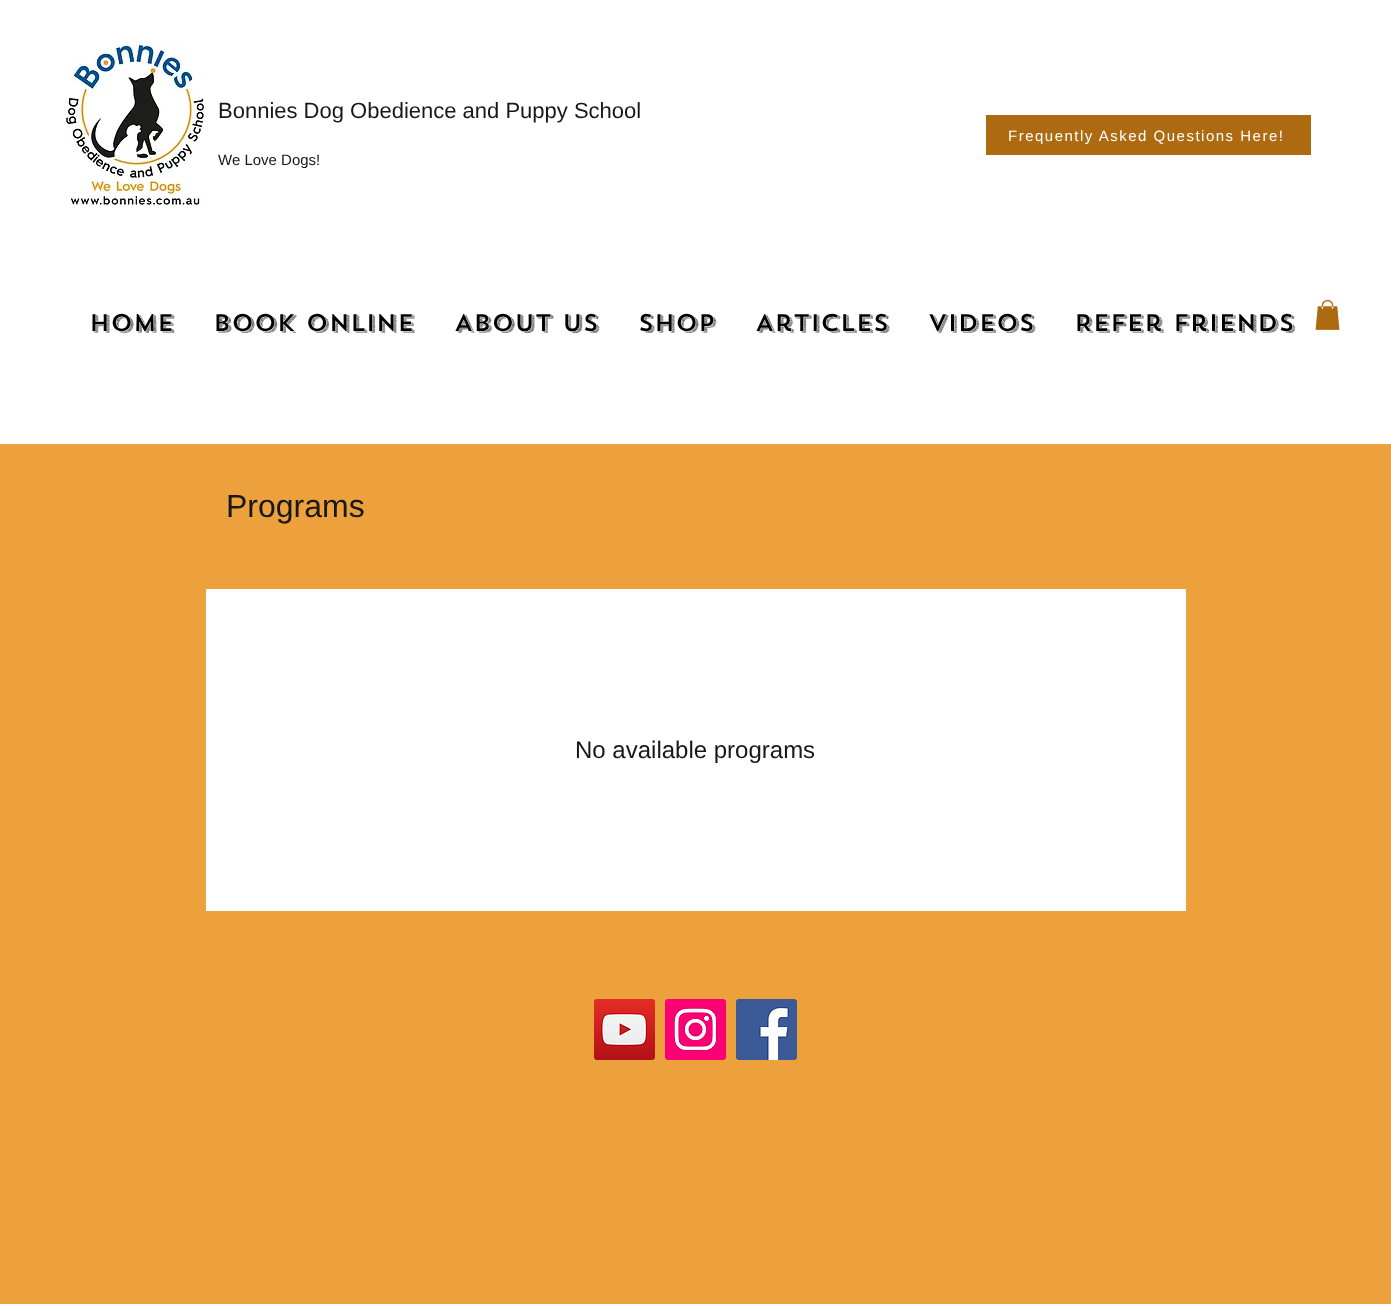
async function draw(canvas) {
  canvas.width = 1391;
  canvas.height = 1304;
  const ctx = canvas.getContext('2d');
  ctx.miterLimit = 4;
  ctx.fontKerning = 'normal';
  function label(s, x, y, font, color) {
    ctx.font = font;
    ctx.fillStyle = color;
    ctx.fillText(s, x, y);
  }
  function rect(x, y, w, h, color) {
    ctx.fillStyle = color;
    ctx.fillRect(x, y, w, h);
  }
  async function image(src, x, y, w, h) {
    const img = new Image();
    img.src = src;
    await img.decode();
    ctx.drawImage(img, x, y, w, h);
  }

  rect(0, 0, 1391, 1304, '#eca13d');
  rect(0, 0, 1391, 444, '#fff');
  await image('assets/img1.png', 66, 45, 138, 160);
  label('Bonnies Dog Obedience and Puppy School', 218, 118, '22px Liberation Sans', '#181818');
  label('We Love Dogs!', 218, 165, '15px Liberation Sans', '#181818');
  rect(986, 115, 325, 40, '#ad6a11');
  ctx.save();
  ctx.beginPath();
  ctx.rect(1008, 127, 277, 17);
  ctx.clip();
  ctx.letterSpacing = '1.5px';
  label('Frequently Asked Questions Here!', 1008, 141, '15px Liberation Sans', '#fff');
  ctx.restore();
  label('Home', 89, 331, '500 24px "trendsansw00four"', '#000');
  label('Book Online', 213, 331, '500 24px "trendsansw00four"', '#000');
  label('About Us', 454, 331, '500 24px "trendsansw00four"', '#000');
  label('Shop', 638, 331, '500 24px "trendsansw00four"', '#000');
  label('Articles', 755, 331, '500 24px "trendsansw00four"', '#000');
  label('Videos', 928, 331, '500 24px "trendsansw00four"', '#000');
  label('Refer Friends', 1074, 331, '500 24px "trendsansw00four"', '#000');
  await image('assets/img2.png', 1315, 300, 25, 30);
  label('Programs', 226, 517, '32px Liberation Sans', '#181818');
  rect(206, 589, 980, 322, '#fff');
  label('No available programs', 575, 758, '24px Liberation Sans', '#181818');
  await image('assets/img3.png', 594, 999, 61, 61);
  await image('assets/img4.png', 665, 999, 61, 61);
  await image('assets/img5.png', 736, 999, 61, 61);
}

draw(document.querySelector('canvas'));
